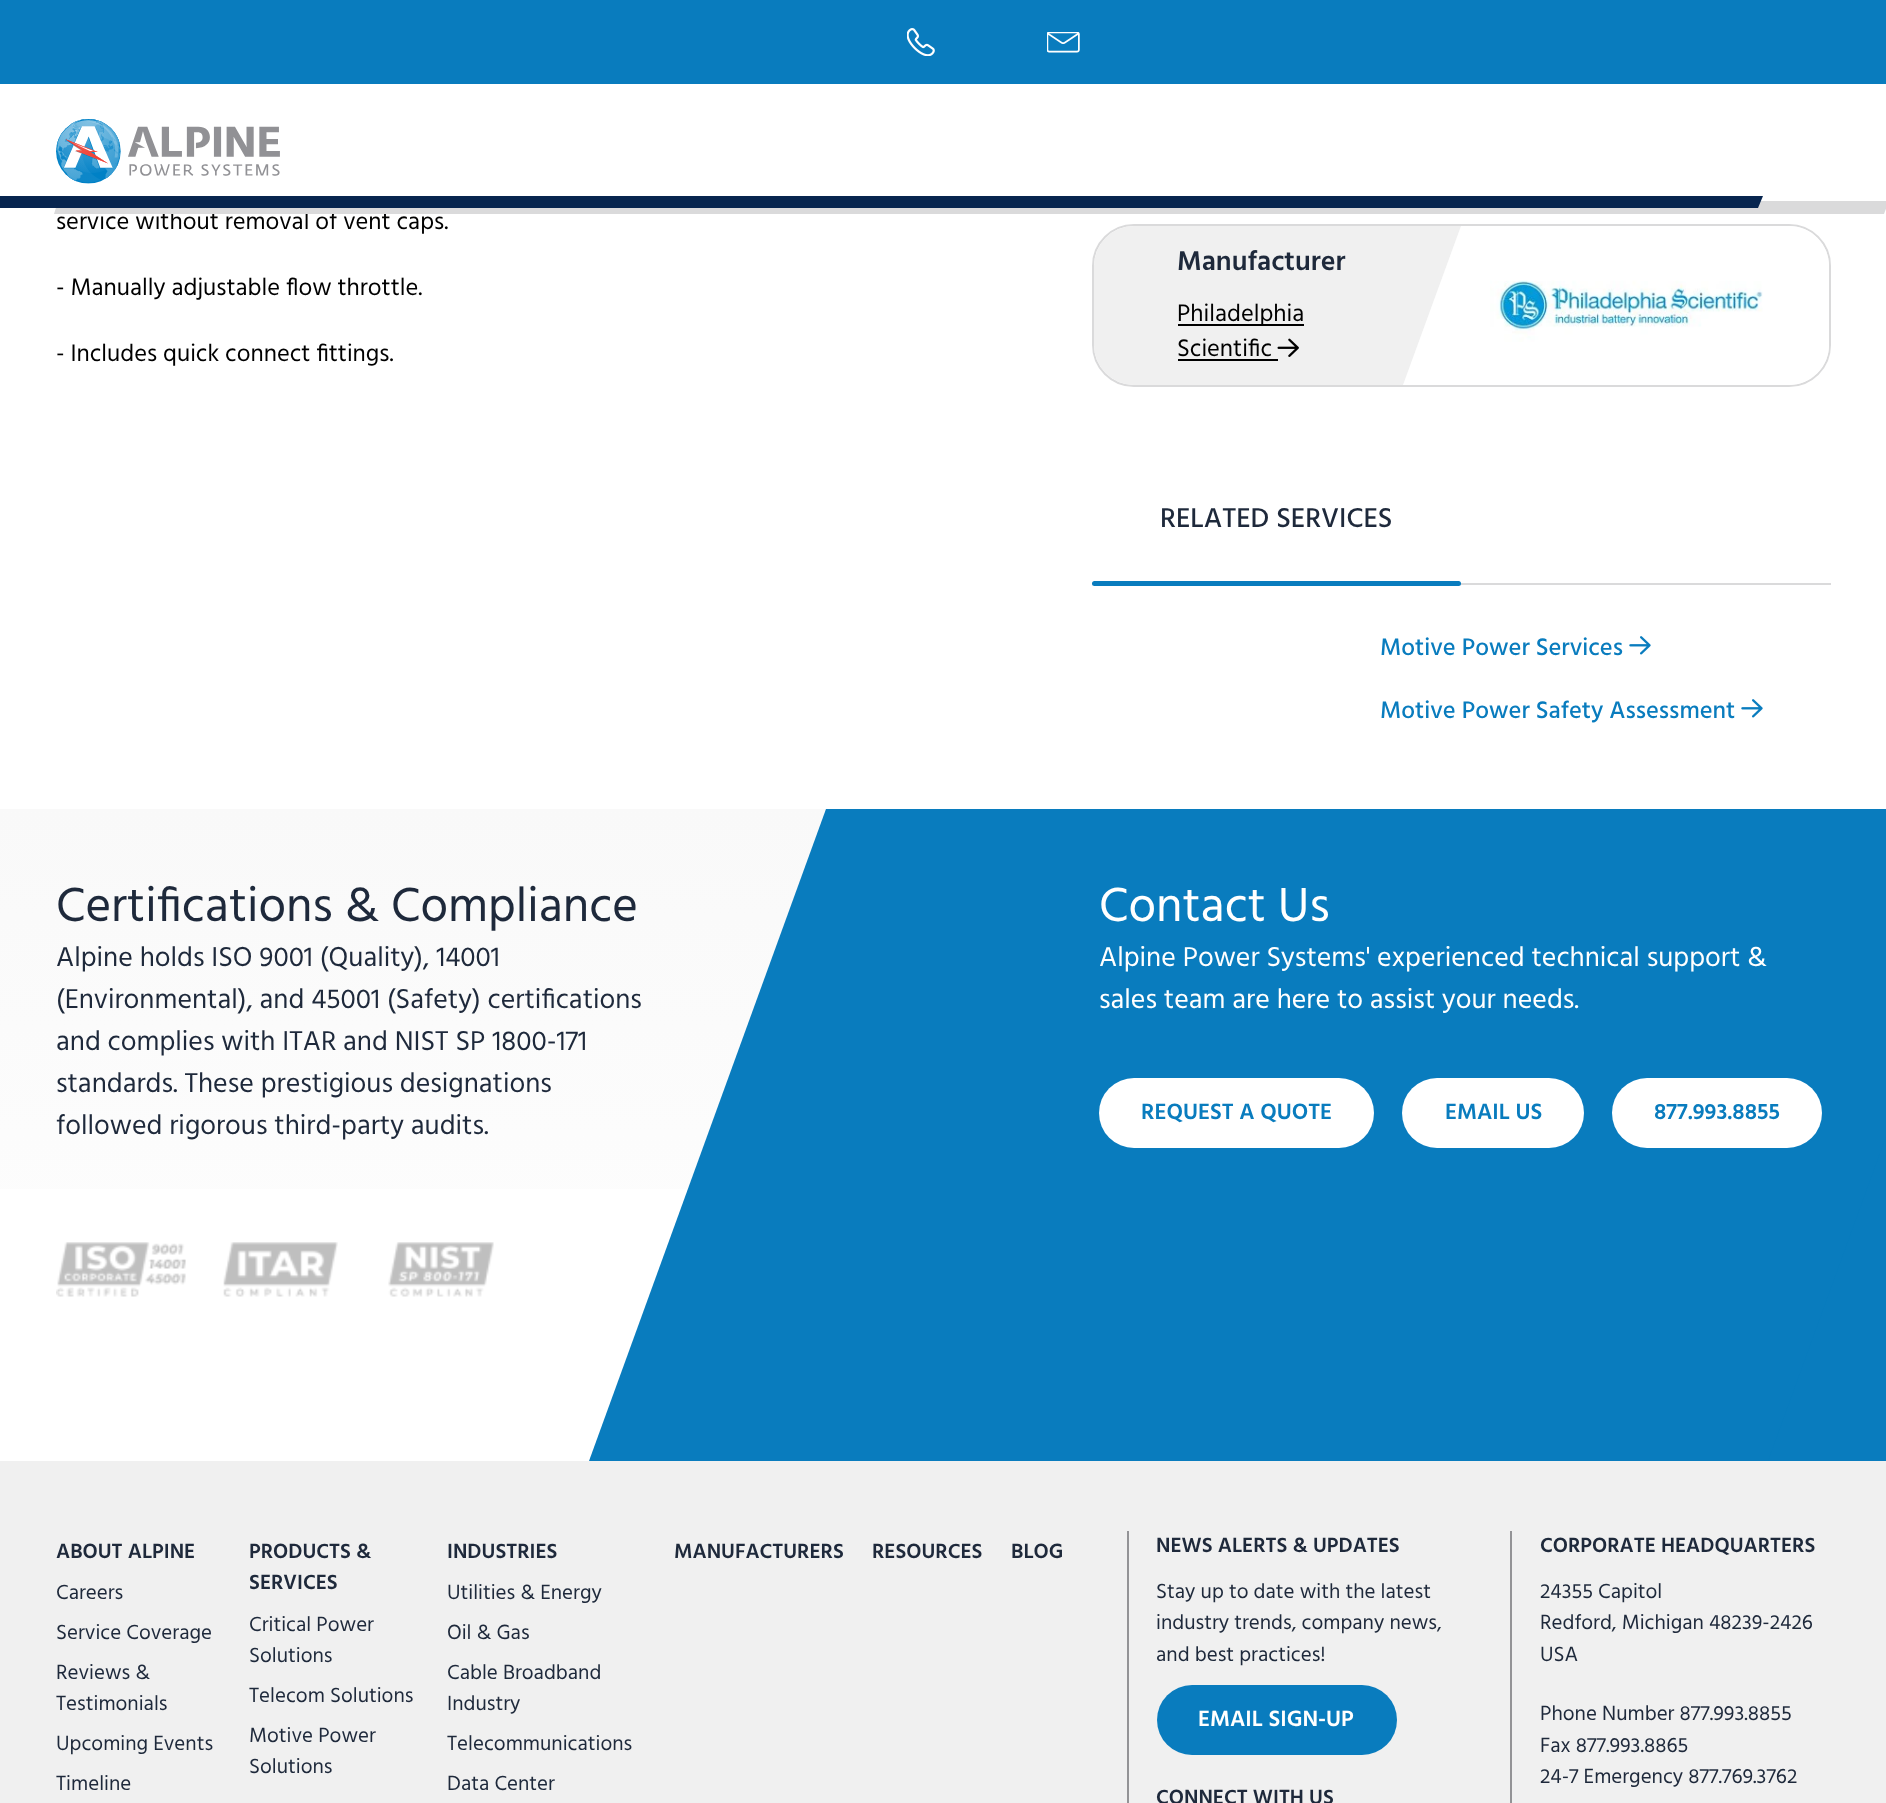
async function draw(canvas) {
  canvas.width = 1886;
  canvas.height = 1803;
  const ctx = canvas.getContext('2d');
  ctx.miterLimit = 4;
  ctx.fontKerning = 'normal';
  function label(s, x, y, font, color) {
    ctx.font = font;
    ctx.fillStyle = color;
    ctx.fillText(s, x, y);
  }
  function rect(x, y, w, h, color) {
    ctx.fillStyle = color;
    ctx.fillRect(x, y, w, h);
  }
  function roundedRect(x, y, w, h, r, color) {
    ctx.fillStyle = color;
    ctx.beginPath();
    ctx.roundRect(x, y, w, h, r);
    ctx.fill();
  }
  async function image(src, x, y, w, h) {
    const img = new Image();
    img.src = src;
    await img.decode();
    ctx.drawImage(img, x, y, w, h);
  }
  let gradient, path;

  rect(0, 0, 1886, 1803, '#fff');
  label('service without removal of vent caps.', 56, 229, '24.5px Hind', '#000');
  rect(101, 211, 236, 1, '#fff');
  rect(0, 0, 1886, 84, '#097cbe');
  await image('assets/img1.png', 907, 28, 28, 28);
  await image('assets/img2.png', 1047, 32, 33, 21);
  await image('assets/img3.png', 56, 119, 224, 65);
  ctx.fillStyle = '#dadadb';
  path = new Path2D('M58 201H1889L1884 214H54Z');
  ctx.fill(path);
  ctx.fillStyle = '#07254f';
  path = new Path2D('M-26 196H1763L1758 208H-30Z');
  ctx.fill(path);
  label('- Manually adjustable flow throttle.', 56, 295, '24.5px Hind', '#000');
  label('- Includes quick connect fittings.', 56, 361, '24.5px Hind', '#000');
  ctx.beginPath();
  ctx.roundRect(1093, 225, 737, 161, 41);
  ctx.strokeStyle = '#dadadb';
  ctx.lineWidth = 2;
  ctx.stroke();
  ctx.fillStyle = '#f0f0f0';
  ctx.beginPath();
  ctx.roundRect(1094, 226, 367, 159, [40, 0, 0, 40]);
  ctx.fill();
  label('Manufacturer', 1177, 270, '600 28px Hind', '#1e293b');
  rect(1178, 324, 126, 2, '#000');
  label('Philadelphia', 1177, 321, '24.5px Hind', '#000');
  label('Scientific', 1177, 356, '24.5px Hind', '#000');
  rect(1178, 359, 100, 2, '#000');
  await image('assets/img4.png', 1277, 338, 22, 19);
  ctx.fillStyle = '#fff';
  path = new Path2D('M1461 226L1403 385H1789C1811 385 1829 367 1829 345V266C1829 244 1811 226 1789 226Z');
  ctx.fill(path);
  await image('assets/img5.png', 1490, 280, 273, 62);
  rect(1092, 583, 739, 2, '#dadadb');
  label('RELATED SERVICES', 1160, 527, '500 28px Hind', '#1e293b');
  roundedRect(1092, 581, 369, 5, 2.5, '#097cbe');
  label('Motive Power Services', 1380, 655, '500 24.5px Hind', '#097cbe');
  await image('assets/img6.png', 1629, 636, 22, 19);
  label('Motive Power Safety Assessment', 1380, 718, '500 24.5px Hind', '#097cbe');
  await image('assets/img6.png', 1741, 699, 22, 19);
  gradient = ctx.createLinearGradient(943, 808, 943, 1461);
  gradient.addColorStop(0, '#f9f9f9');
  gradient.addColorStop(1, '#fff');
  ctx.fillStyle = gradient;
  ctx.fillRect(0, 809, 826, 380);
  label('Certifications & Compliance', 56, 921, '49px Hind', '#1e293b');
  label('Alpine holds ISO 9001 (Quality), 14001', 56, 966, '28px Hind', '#1e293b');
  label('(Environmental), and 45001 (Safety) certifications', 56, 1008, '28px Hind', '#1e293b');
  label('and complies with ITAR and NIST SP 1800-171', 56, 1050, '28px Hind', '#1e293b');
  label('standards. These prestigious designations', 56, 1092, '28px Hind', '#1e293b');
  label('followed rigorous third-party audits.', 56, 1134, '28px Hind', '#1e293b');
  await image('assets/img7.png', 56, 1242, 130, 55);
  await image('assets/img8.png', 223, 1242, 115, 55);
  await image('assets/img9.png', 388, 1242, 106, 55);
  rect(1768, 1136, 118, 325, '#097cbe');
  path = new Path2D('M826 809H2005L1768 1461H589Z');
  ctx.fill(path);
  label('Contact Us', 1099, 921, '49px Hind', '#fff');
  label('Alpine Power Systems\' experienced technical support &', 1099, 966, '28px Hind', '#fff');
  label('sales team are here to assist your needs.', 1099, 1008, '28px Hind', '#fff');
  roundedRect(1099, 1078, 275, 70, 35, '#fff');
  label('REQUEST A QUOTE', 1141, 1119, '600 22.75px Hind', '#097cbe');
  roundedRect(1402, 1078, 182, 70, 35, '#fff');
  label('EMAIL US', 1445, 1119, '600 22.75px Hind', '#097cbe');
  roundedRect(1612, 1078, 210, 70, 35, '#fff');
  label('877.993.8855', 1654, 1119, '600 22.75px Hind', '#097cbe');
  rect(0, 1461, 1886, 342, '#f0f0f0');
  label('ABOUT ALPINE', 56, 1558, '600 21px Hind', '#1e293b');
  label('Careers', 56, 1599, '21px Hind', '#1e293b');
  label('Service Coverage', 56, 1639, '21px Hind', '#1e293b');
  label('Reviews &', 56, 1679, '21px Hind', '#1e293b');
  label('Testimonials', 56, 1710, '21px Hind', '#1e293b');
  label('Upcoming Events', 56, 1750, '21px Hind', '#1e293b');
  label('Timeline', 56, 1790, '21px Hind', '#1e293b');
  label('PRODUCTS &', 249, 1558, '600 21px Hind', '#1e293b');
  label('SERVICES', 249, 1589, '600 21px Hind', '#1e293b');
  label('Critical Power', 249, 1631, '21px Hind', '#1e293b');
  label('Solutions', 249, 1662, '21px Hind', '#1e293b');
  label('Telecom Solutions', 249, 1702, '21px Hind', '#1e293b');
  label('Motive Power', 249, 1742, '21px Hind', '#1e293b');
  label('Solutions', 249, 1773, '21px Hind', '#1e293b');
  label('INDUSTRIES', 447, 1558, '600 21px Hind', '#1e293b');
  label('Utilities & Energy', 447, 1599, '21px Hind', '#1e293b');
  label('Oil & Gas', 447, 1639, '21px Hind', '#1e293b');
  label('Cable Broadband', 447, 1679, '21px Hind', '#1e293b');
  label('Industry', 447, 1710, '21px Hind', '#1e293b');
  label('Telecommunications', 447, 1750, '21px Hind', '#1e293b');
  label('Data Center', 447, 1790, '21px Hind', '#1e293b');
  label('MANUFACTURERS', 674, 1558, '600 21px Hind', '#1e293b');
  label('RESOURCES', 872, 1558, '600 21px Hind', '#1e293b');
  label('BLOG', 1011, 1558, '600 21px Hind', '#1e293b');
  rect(1127, 1531, 2, 272, '#939396');
  label('NEWS ALERTS & UPDATES', 1156, 1552, '600 21px Hind', '#1e293b');
  label('Stay up to date with the latest', 1156, 1598, '21px Hind', '#1e293b');
  label('industry trends, company news,', 1156, 1629, '21px Hind', '#1e293b');
  label('and best practices!', 1156, 1661, '21px Hind', '#1e293b');
  roundedRect(1157, 1685, 240, 70, 35, '#097cbe');
  label('EMAIL SIGN-UP', 1198, 1726, '600 22.75px Hind', '#fff');
  label('CONNECT WITH US', 1156, 1804, '600 21px Hind', '#1e293b');
  rect(1510, 1531, 2, 272, '#939396');
  label('CORPORATE HEADQUARTERS', 1540, 1552, '600 21px Hind', '#1e293b');
  label('24355 Capitol', 1540, 1598, '21px Hind', '#1e293b');
  label('Redford, Michigan 48239-2426', 1540, 1629, '21px Hind', '#1e293b');
  label('USA', 1540, 1661, '21px Hind', '#1e293b');
  label('Phone Number 877.993.8855', 1540, 1720, '21px Hind', '#1e293b');
  label('Fax 877.993.8865', 1540, 1752, '21px Hind', '#1e293b');
  label('24-7 Emergency 877.769.3762', 1540, 1783, '21px Hind', '#1e293b');
}

draw(document.querySelector('canvas'));
